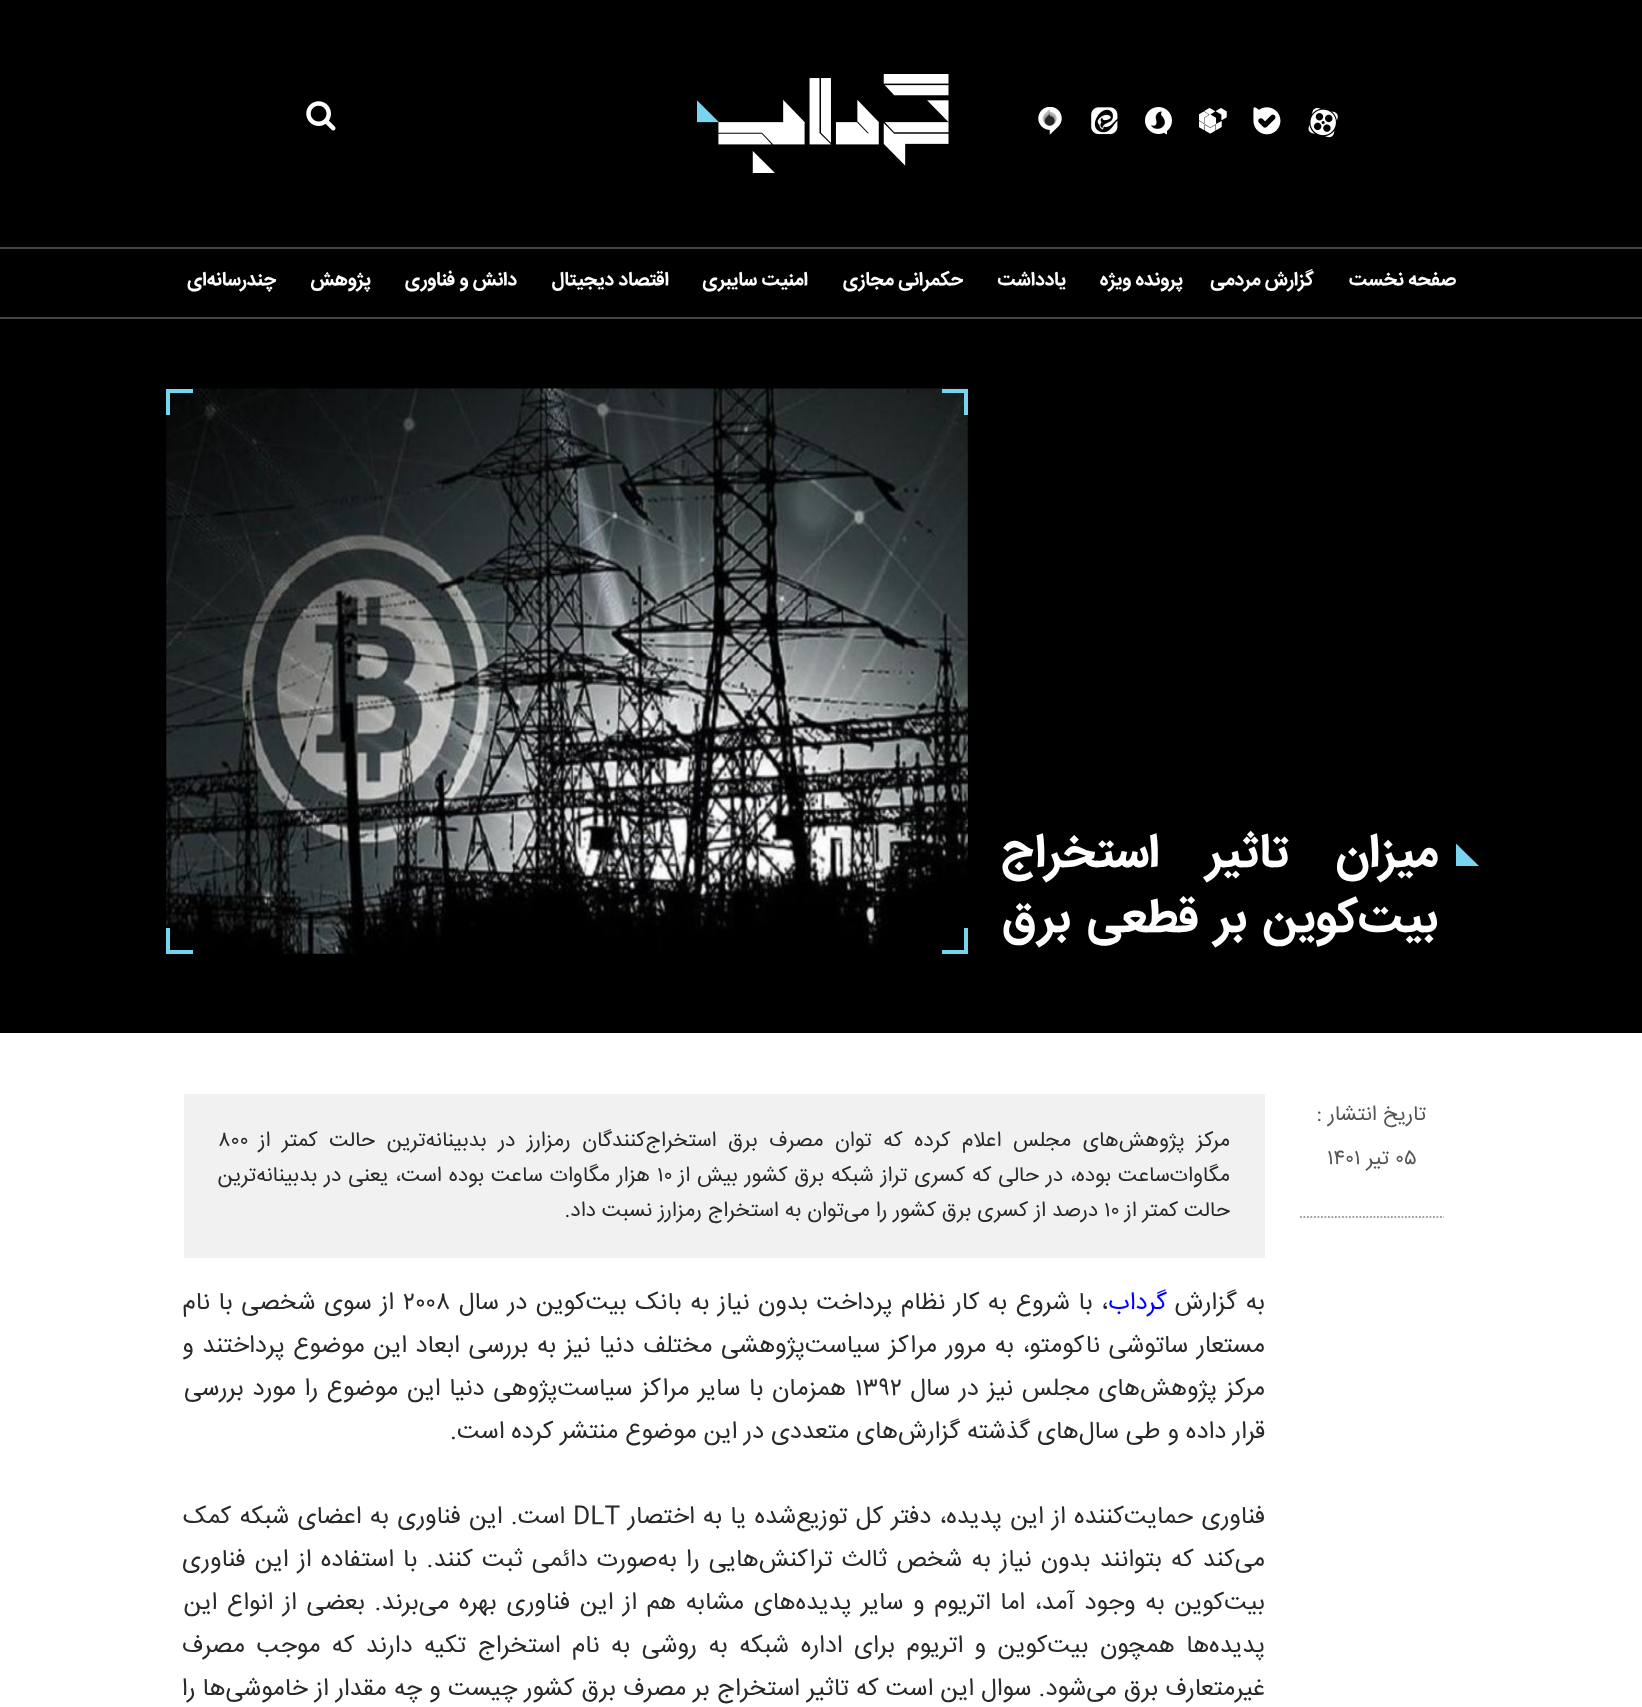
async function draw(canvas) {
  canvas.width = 1642;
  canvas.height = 1707;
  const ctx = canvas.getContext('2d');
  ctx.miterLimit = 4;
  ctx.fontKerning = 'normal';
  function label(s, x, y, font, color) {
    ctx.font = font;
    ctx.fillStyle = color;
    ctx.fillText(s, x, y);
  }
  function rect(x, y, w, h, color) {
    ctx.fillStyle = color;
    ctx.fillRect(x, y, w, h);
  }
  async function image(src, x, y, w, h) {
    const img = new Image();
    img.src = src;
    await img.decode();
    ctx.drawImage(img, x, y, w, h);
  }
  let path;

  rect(0, 0, 1642, 1707, '#fff');
  rect(0, 0, 1642, 1033, '#000');
  rect(0, 247, 1642, 2, '#444');
  await image('assets/img1.png', 1308, 108, 30, 30);
  await image('assets/img2.png', 1253, 107, 28, 28);
  await image('assets/img3.png', 1199, 108, 28, 26);
  await image('assets/img4.png', 1145, 107, 27, 28);
  await image('assets/img5.png', 1091, 107, 27, 28);
  await image('assets/img6.png', 1038, 107, 24, 28);
  await image('assets/img7.png', 697, 74, 252, 99);
  await image('assets/img8.png', 306, 101, 30, 30);
  rect(0, 317, 1642, 2, '#444');
  ctx.direction = 'rtl';
  label('صفحه نخست', 1456, 285, 'bold 19.25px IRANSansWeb', '#fff');
  label('گزارش مردمی', 1314, 285, 'bold 19.25px IRANSansWeb', '#fff');
  label('پرونده ویژه', 1183, 285, 'bold 19.25px IRANSansWeb', '#fff');
  label('یادداشت', 1066, 285, 'bold 19.25px IRANSansWeb', '#fff');
  label('حکمرانی مجازی', 963, 285, 'bold 19.25px IRANSansWeb', '#fff');
  label('امنیت سایبری', 808, 285, 'bold 19.25px IRANSansWeb', '#fff');
  label('اقتصاد دیجیتال', 669, 285, 'bold 19.25px IRANSansWeb', '#fff');
  label('دانش و فناوری', 517, 285, 'bold 19.25px IRANSansWeb', '#fff');
  label('پژوهش', 371, 285, 'bold 19.25px IRANSansWeb', '#fff');
  label('چندرسانه‌ای', 276, 285, 'bold 19.25px IRANSansWeb', '#fff');
  ctx.fillStyle = '#79d4ef';
  path = new Path2D('M1479 866H1456V843.5Z');
  ctx.fill(path);
  ctx.wordSpacing = '36px';
  label('میزان تاثیر استخراج', 1438, 866, 'bold 47.25px IRANSansWeb', '#fff');
  ctx.wordSpacing = '5.5px';
  label('بیت‌کوین بر قطعی برق', 1438, 931, 'bold 47.25px IRANSansWeb', '#fff');
  await image('assets/img9.png', 166, 388, 802, 566);
  rect(964, 928, 4, 26, '#78d3ee');
  rect(942, 950, 26, 4, '#78d3ee');
  rect(166, 950, 27, 4, '#78d3ee');
  rect(166, 928, 4, 26, '#78d3ee');
  rect(942, 389, 26, 4, '#78d3ee');
  rect(964, 389, 4, 26, '#78d3ee');
  rect(166, 389, 27, 4, '#78d3ee');
  rect(166, 389, 4, 26, '#78d3ee');
  path = new Path2D('M1300 1217H1444');
  ctx.strokeStyle = '#9f9f9f';
  ctx.lineWidth = 1.8;
  ctx.setLineDash([1.75, 1.75]);
  ctx.stroke(path);
  ctx.wordSpacing = '0px';
  label('تاریخ انتشار :', 1426, 1120, '21px IRANSansWeb', '#565656');
  ctx.direction = 'ltr';
  label('۰۵', 1395, 1164, '21px IRANSansWeb', '#565656');
  ctx.direction = 'rtl';
  label('تير', 1389, 1164, '21px IRANSansWeb', '#565656');
  ctx.direction = 'ltr';
  label('۱۴۰۱', 1327, 1164, '21px IRANSansWeb', '#565656');
  rect(184, 1094, 1081, 164, '#f1f1f1');
  ctx.wordSpacing = '5.75px';
  ctx.direction = 'rtl';
  label('مرکز پژوهش‌های مجلس اعلام کرده که توان مصرف برق استخراج‌کنندگان رمزارز در بدبینانه‌ترین حالت کمتر از', 1230, 1146, '21px IRANSansWeb', '#292929');
  ctx.wordSpacing = '0px';
  ctx.direction = 'ltr';
  label('۸۰۰', 218, 1146, '21px IRANSansWeb', '#292929');
  ctx.wordSpacing = '1px';
  ctx.direction = 'rtl';
  label('مگاوات‌ساعت بوده، در حالی که کسری تراز شبکه برق کشور بیش از', 1230, 1181, '21px IRANSansWeb', '#292929');
  ctx.wordSpacing = '0px';
  ctx.direction = 'ltr';
  label('۱۰', 657, 1181, '21px IRANSansWeb', '#292929');
  ctx.wordSpacing = '1px';
  ctx.direction = 'rtl';
  label('هزار مگاوات ساعت بوده است، یعنی در بدبینانه‌ترین', 650, 1181, '21px IRANSansWeb', '#292929');
  ctx.wordSpacing = '0px';
  label('حالت کمتر از', 1230, 1216, '21px IRANSansWeb', '#292929');
  ctx.direction = 'ltr';
  label('۱۰', 1104, 1216, '21px IRANSansWeb', '#292929');
  ctx.direction = 'rtl';
  label('درصد از کسری برق کشور را می‌توان به استخراج رمزارز نسبت داد.', 1098, 1216, '21px IRANSansWeb', '#292929');
  ctx.wordSpacing = '2px';
  label('به گزارش', 1265, 1309, '24.5px IRANSansWeb', '#292929');
  ctx.wordSpacing = '0px';
  label('گرداب', 1167, 1309, '24.5px IRANSansWeb', '#00f');
  ctx.wordSpacing = '1.6px';
  label('، با شروع به کار نظام پرداخت بدون نیاز به بانک بیت‌کوین در سال', 1108, 1309, '24.5px IRANSansWeb', '#292929');
  ctx.wordSpacing = '0px';
  ctx.direction = 'ltr';
  label('۲۰۰۸', 403, 1309, '24.5px IRANSansWeb', '#292929');
  ctx.wordSpacing = '1.6px';
  ctx.direction = 'rtl';
  label('از سوی شخصی با نام', 394, 1309, '24.5px IRANSansWeb', '#292929');
  ctx.wordSpacing = '1.7px';
  label('مستعار ساتوشی ناکومتو، به مرور مراکز سیاست‌پژوهشی مختلف دنیا نیز به بررسی ابعاد این موضوع پرداختند و', 1265, 1352, '24.5px IRANSansWeb', '#292929');
  ctx.wordSpacing = '1.75px';
  label('مرکز پژوهش‌های مجلس نیز در سال', 1265, 1395, '24.5px IRANSansWeb', '#292929');
  ctx.wordSpacing = '0px';
  ctx.direction = 'ltr';
  label('۱۳۹۲', 855, 1395, '24.5px IRANSansWeb', '#292929');
  ctx.wordSpacing = '1.75px';
  ctx.direction = 'rtl';
  label('همزمان با سایر مراکز سیاست‌پژوهی دنیا این موضوع را مورد بررسی', 846, 1395, '24.5px IRANSansWeb', '#292929');
  ctx.wordSpacing = '0px';
  label('قرار داده و طی سال‌های گذشته گزارش‌های متعددی در این موضوع منتشر کرده است.', 1265, 1438, '24.5px IRANSansWeb', '#292929');
  ctx.wordSpacing = '1.25px';
  label('فناوری حمایت‌کننده از این پدیده، دفتر کل توزیع‌شده یا به اختصار', 1265, 1523, '24.5px IRANSansWeb', '#292929');
  ctx.wordSpacing = '0px';
  ctx.direction = 'ltr';
  label('DLT', 573, 1523, '24.5px IRANSansWeb', '#292929');
  ctx.wordSpacing = '1.25px';
  ctx.direction = 'rtl';
  label('است. این فناوری به اعضای شبکه کمک', 565, 1523, '24.5px IRANSansWeb', '#292929');
  ctx.wordSpacing = '2.25px';
  label('می‌کند که بتوانند بدون نیاز به شخص ثالث تراکنش‌هایی را به‌صورت دائمی ثبت کنند. با استفاده از این فناوری', 1265, 1566, '24.5px IRANSansWeb', '#292929');
  ctx.wordSpacing = '2.75px';
  label('بیت‌کوین به وجود آمد، اما اتریوم و سایر پدیده‌های مشابه هم از این فناوری بهره می‌برند. بعضی از انواع این', 1265, 1609, '24.5px IRANSansWeb', '#292929');
  ctx.wordSpacing = '4.6px';
  label('پدیده‌ها همچون بیت‌کوین و اتریوم برای اداره شبکه به روشی به نام استخراج تکیه دارند که موجب مصرف', 1265, 1652, '24.5px IRANSansWeb', '#292929');
  ctx.wordSpacing = '0.25px';
  label('غیرمتعارف برق می‌شود. سوال این است که تاثیر استخراج بر مصرف برق کشور چیست و چه مقدار از خاموشی‌ها را', 1265, 1695, '24.5px IRANSansWeb', '#292929');
}

draw(document.querySelector('canvas'));
